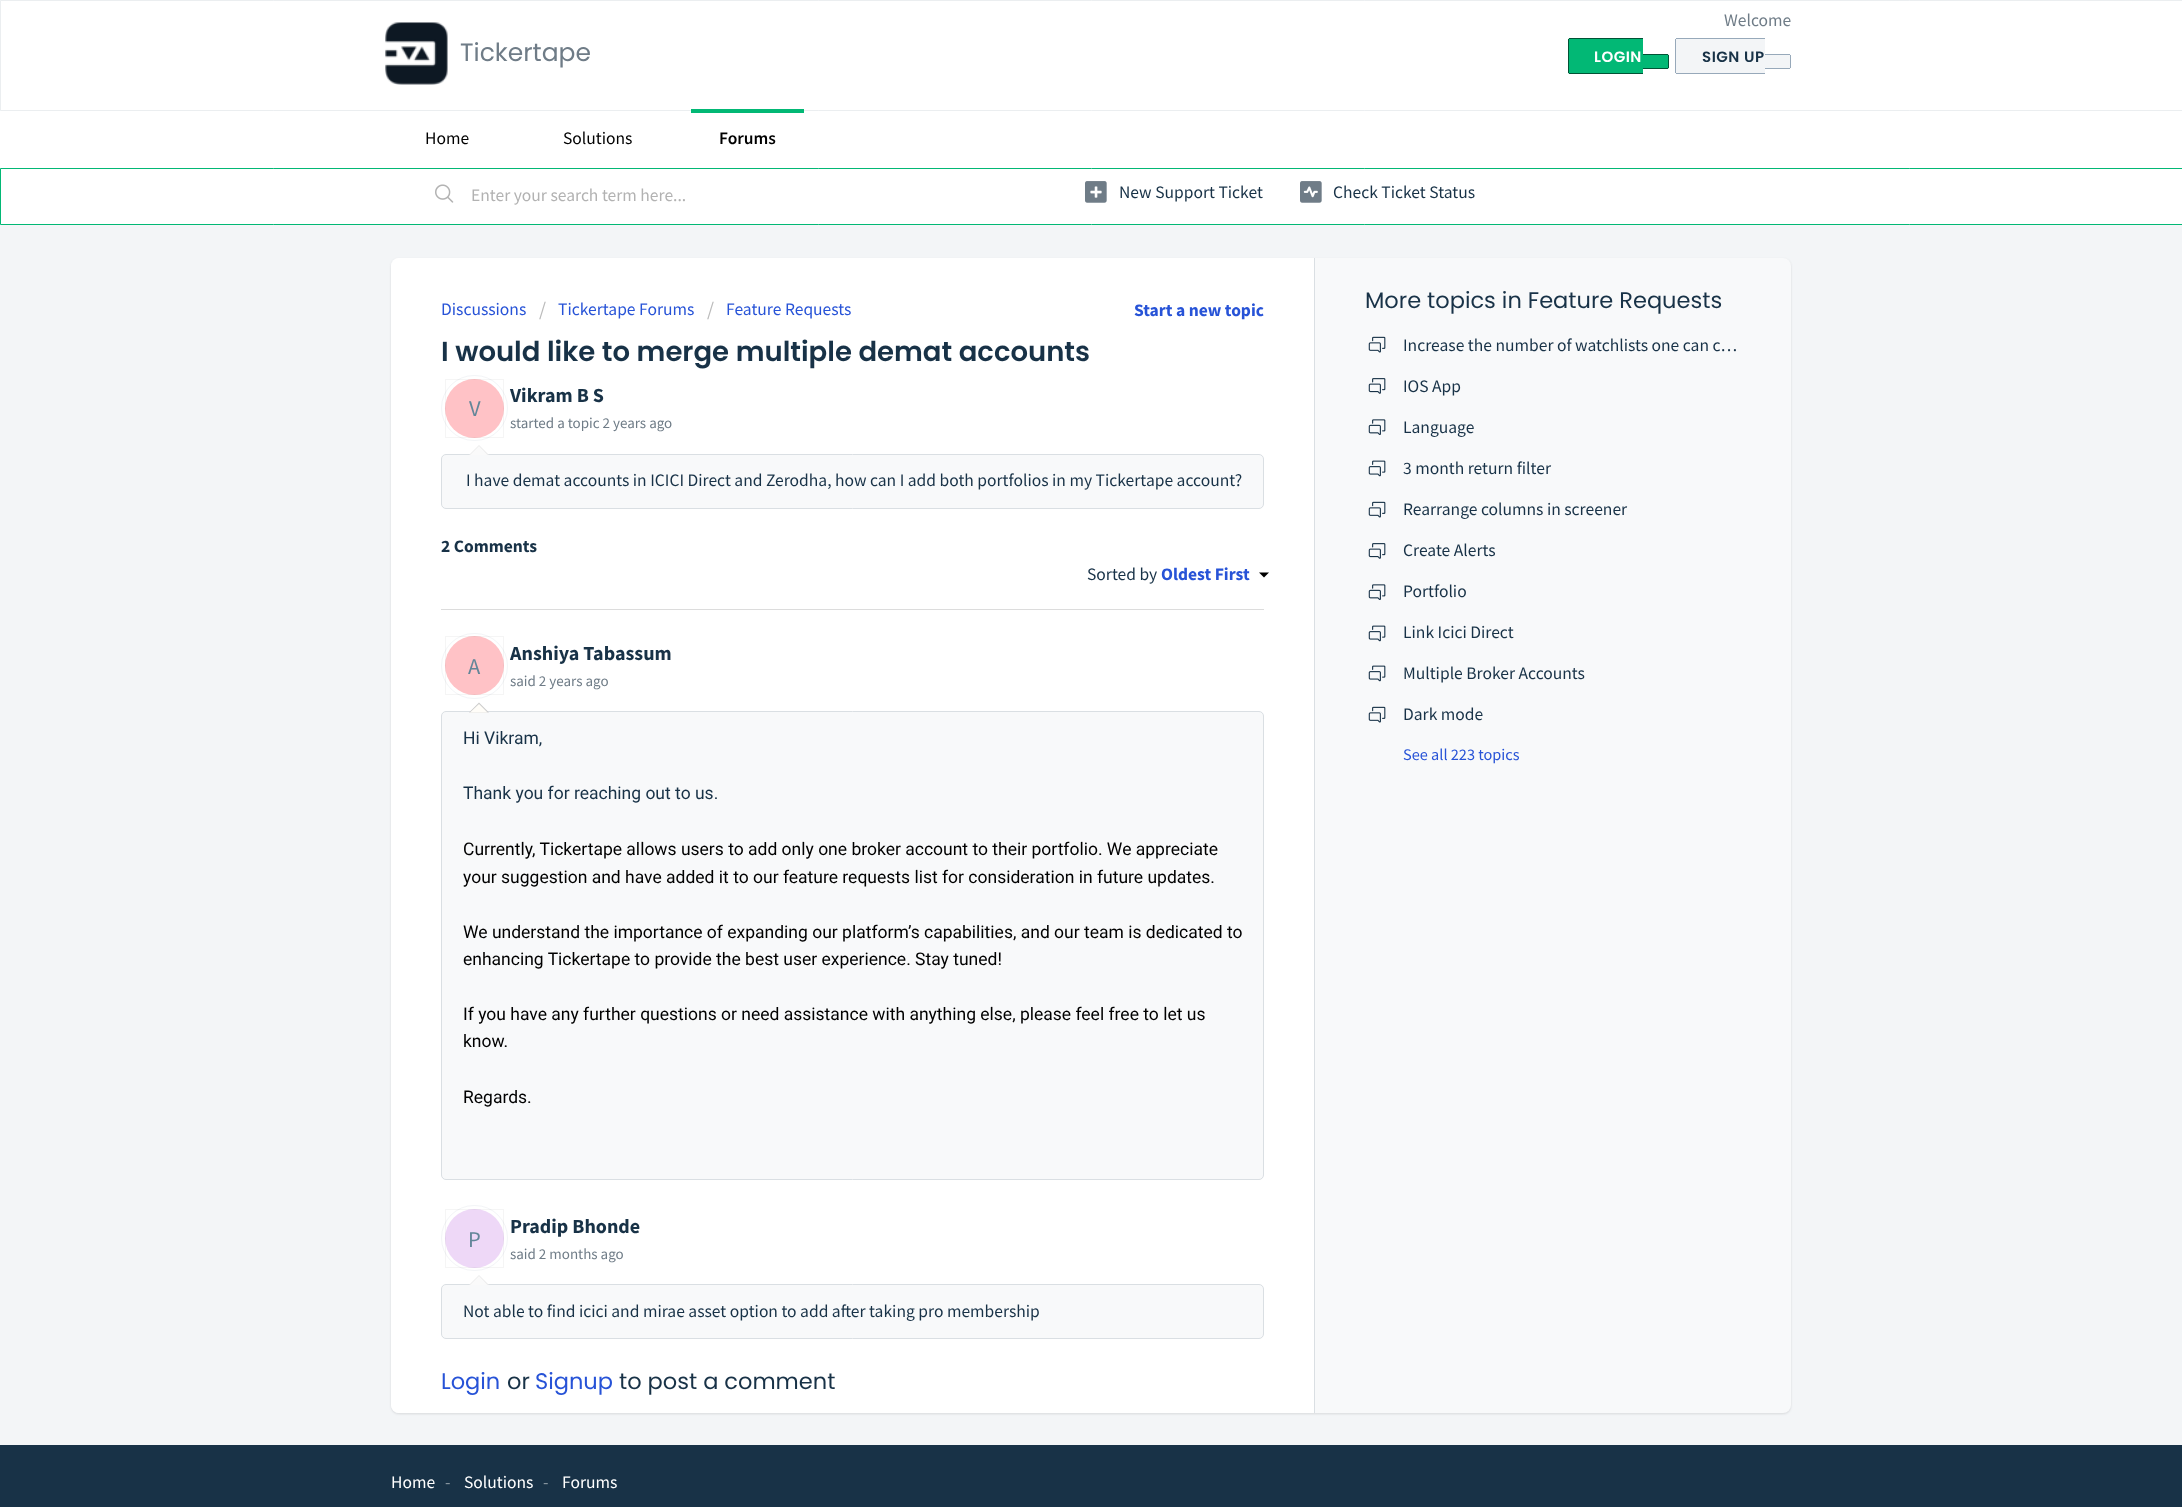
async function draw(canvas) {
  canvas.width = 2182;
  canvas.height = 1507;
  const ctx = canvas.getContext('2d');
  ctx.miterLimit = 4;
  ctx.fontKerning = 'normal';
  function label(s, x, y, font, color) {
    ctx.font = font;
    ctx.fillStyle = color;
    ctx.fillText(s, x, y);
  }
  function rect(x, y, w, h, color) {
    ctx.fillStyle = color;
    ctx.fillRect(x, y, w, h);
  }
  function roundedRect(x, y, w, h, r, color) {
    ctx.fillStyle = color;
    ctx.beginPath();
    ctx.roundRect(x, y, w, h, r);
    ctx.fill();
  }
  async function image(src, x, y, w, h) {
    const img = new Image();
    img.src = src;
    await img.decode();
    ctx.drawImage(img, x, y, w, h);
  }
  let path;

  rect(0, 0, 2182, 1507, '#f3f5f7');
  ctx.fillStyle = '#fff';
  ctx.beginPath();
  ctx.rect(0.5, 0.5, 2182, 110);
  ctx.fill();
  ctx.strokeStyle = '#ebeef0';
  ctx.stroke();
  await image('assets/img1.png', 385, 22, 63, 63);
  label('Tickertape', 460, 61, '25px Poppins', '#6f7c87');
  label('Welcome', 1724, 26, '17.5px Source Sans Pro', '#6f7c87');
  ctx.fillStyle = '#02b875';
  ctx.beginPath();
  ctx.roundRect(1568, 38, 75, 36, [2.5, 0, 0, 2.5]);
  ctx.fill();
  ctx.letterSpacing = '0.5px';
  label('LOGIN', 1594, 62, '600 15px Poppins', '#fff');
  rect(1569, 38, 74, 1, '#015335');
  rect(1569, 73, 74, 1, '#015335');
  rect(1568, 39, 1, 34, '#015335');
  ctx.fillStyle = '#02b875';
  ctx.beginPath();
  ctx.roundRect(1643, 54, 26, 15, [0, 2.5, 2.5, 0]);
  ctx.fill();
  rect(1643, 54, 25, 1, '#015335');
  rect(1668, 55, 1, 13, '#015335');
  rect(1643, 68, 25, 1, '#015335');
  ctx.fillStyle = '#f3f5f7';
  ctx.beginPath();
  ctx.roundRect(1675, 38, 90, 36, [2.5, 0, 0, 2.5]);
  ctx.fill();
  label('SIGN UP', 1702, 62, '600 15px Poppins', '#183247');
  rect(1676, 38, 89, 1, '#97a9ba');
  rect(1676, 73, 89, 1, '#97a9ba');
  rect(1675, 39, 1, 34, '#97a9ba');
  ctx.fillStyle = '#f3f5f7';
  ctx.beginPath();
  ctx.roundRect(1765, 54, 26, 15, [0, 2.5, 2.5, 0]);
  ctx.fill();
  rect(1765, 54, 25, 1, '#97a9ba');
  rect(1790, 55, 1, 13, '#97a9ba');
  rect(1765, 68, 25, 1, '#97a9ba');
  rect(0, 111, 2182, 57, '#fff');
  ctx.letterSpacing = '0px';
  label('Home', 425, 144, '17.5px Source Sans Pro', '#000');
  label('Solutions', 563, 144, '17.5px Source Sans Pro', '#000');
  rect(691, 109, 113, 4, '#02b875');
  label('Forums', 719, 144, '600 17.5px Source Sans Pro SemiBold', '#000');
  ctx.fillStyle = '#fff';
  ctx.beginPath();
  ctx.rect(0.5, 168.5, 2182, 56);
  ctx.fill();
  ctx.strokeStyle = '#02b875';
  ctx.stroke();
  await image('assets/img2.png', 435, 184, 19, 19);
  label('Enter your search term here...', 471, 201, '17.5px Source Sans Pro', '#b2b2b2');
  await image('assets/img3.png', 1085, 181, 22, 22);
  label('New Support Ticket', 1119, 198, '17.5px Source Sans Pro', '#183247');
  await image('assets/img4.png', 1300, 181, 22, 22);
  label('Check Ticket Status', 1333, 198, '17.5px Source Sans Pro', '#183247');
  ctx.fillStyle = '#3f3f4426';
  ctx.filter = 'blur(1px)';
  ctx.beginPath();
  ctx.roundRect(391, 259, 1400, 1155, 8);
  ctx.fill();
  ctx.filter = 'none';
  roundedRect(391, 258, 1400, 1155, 8, '#f8f9fa');
  ctx.fillStyle = '#fff';
  ctx.beginPath();
  ctx.roundRect(391, 258, 924, 1155, [8, 0, 0, 8]);
  ctx.fill();
  rect(1314, 258, 1, 1155, '#dadfe3');
  label('Discussions', 441, 315, '17.5px Source Sans Pro', '#2753d7');
  label('/', 539, 316, '20px Source Sans Pro', '#bbb');
  label('Tickertape Forums', 558, 315, '17.5px Source Sans Pro', '#2753d7');
  label('/', 707, 316, '20px Source Sans Pro', '#bbb');
  label('Feature Requests', 726, 315, '17.5px Source Sans Pro', '#2753d7');
  label('Start a new topic', 1134, 316, 'bold 17.5px Source Sans Pro', '#2753d7');
  label('I would like to merge multiple demat accounts', 441, 361, '600 27.5px Poppins', '#183247');
  ctx.beginPath();
  ctx.roundRect(441.5, 375.5, 66, 65, 32.5);
  ctx.strokeStyle = '#f3f5f7';
  ctx.stroke();
  ctx.fillStyle = '#ffc2c6';
  ctx.beginPath();
  ctx.arc(474.5, 408.5, 29.5, 0, 2 * Math.PI);
  ctx.fill();
  ctx.strokeStyle = '#0000000a';
  ctx.strokeRect(445.5, 379.5, 58, 58);
  label('V', 469, 416, '22.5px Source Sans Pro', '#638699');
  ctx.fillStyle = '#f8f9fa';
  ctx.beginPath();
  ctx.roundRect(441.5, 454.5, 822, 54, 4.5);
  ctx.fill();
  ctx.strokeStyle = '#dadfe3';
  ctx.stroke();
  ctx.fillStyle = '#ebebeb';
  path = new Path2D('M489 455H469L479 445Z');
  ctx.fill(path);
  ctx.fillStyle = '#fafafa';
  path = new Path2D('M487.5 455H470L479 446Z');
  ctx.fill(path);
  label('Vikram B S', 510, 402, 'bold 20px Source Sans Pro', '#183247');
  label('started a topic 2 years ago', 510, 428, '15px Source Sans Pro', '#6f7c87');
  label('I have demat accounts in ICICI Direct and Zerodha, how can I add both portfolios in my Tickertape account?', 466, 486, '17.5px Source Sans Pro', '#183247');
  label('2 Comments', 441, 552, 'bold 17.5px Source Sans Pro', '#183247');
  label('Sorted by', 1087, 580, '17.5px Source Sans Pro', '#183247');
  label('Oldest First', 1161, 580, 'bold 17.5px Source Sans Pro', '#2753d7');
  ctx.fillStyle = '#000';
  path = new Path2D('M1259 572.5H1269L1264 577.5Z');
  ctx.fill(path);
  rect(441, 609, 823, 1, '#dcdcdc');
  ctx.beginPath();
  ctx.roundRect(441.5, 633.5, 66, 65, 32.5);
  ctx.strokeStyle = '#f3f5f7';
  ctx.stroke();
  ctx.fillStyle = '#ffc2c6';
  ctx.beginPath();
  ctx.arc(474.5, 665.5, 29.5, 0, 2 * Math.PI);
  ctx.fill();
  ctx.strokeStyle = '#0000000a';
  ctx.strokeRect(445.5, 636.5, 58, 58);
  label('A', 468, 674, '22.5px Source Sans Pro', '#638699');
  ctx.fillStyle = '#f8f9fa';
  ctx.beginPath();
  ctx.roundRect(441.5, 711.5, 822, 468, 4.5);
  ctx.fill();
  ctx.strokeStyle = '#dadfe3';
  ctx.stroke();
  ctx.fillStyle = '#ccc';
  path = new Path2D('M489 712.5H469L479 702.5Z');
  ctx.fill(path);
  ctx.fillStyle = '#fffdf8';
  path = new Path2D('M487.5 712.5H470L479 704Z');
  ctx.fill(path);
  label('Anshiya Tabassum', 510, 660, 'bold 20px Source Sans Pro', '#183247');
  label('said 2 years ago', 510, 686, '15px Source Sans Pro', '#6f7c87');
  label('Hi Vikram,', 463, 744, '17.5px Roboto', '#183247');
  label('Thank you for reaching out to us.', 463, 799, '17.5px Roboto', '#183247');
  label('Currently, Tickertape allows users to add only one broker account to their portfolio. We appreciate', 463, 855, '17.5px Roboto', '#000');
  label('your suggestion and have added it to our feature requests list for consideration in future updates.', 463, 883, '17.5px Roboto', '#000');
  label('We understand the importance of expanding our platform’s capabilities, and our team is dedicated to', 463, 938, '17.5px Roboto', '#000');
  label('enhancing Tickertape to provide the best user experience. Stay tuned!', 463, 965, '17.5px Roboto', '#000');
  label('If you have any further questions or need assistance with anything else, please feel free to let us', 463, 1020, '17.5px Roboto', '#000');
  label('know.', 463, 1047, '17.5px Roboto', '#000');
  label('Regards.', 463, 1103, '17.5px Roboto', '#000');
  ctx.beginPath();
  ctx.roundRect(441.5, 1205.5, 66, 65, 32.5);
  ctx.strokeStyle = '#f3f5f7';
  ctx.stroke();
  ctx.fillStyle = '#eed8f7';
  ctx.beginPath();
  ctx.arc(474.5, 1238.5, 29.5, 0, 2 * Math.PI);
  ctx.fill();
  ctx.strokeStyle = '#0000000a';
  ctx.strokeRect(445.5, 1209.5, 58, 58);
  label('P', 468, 1247, '22.5px Source Sans Pro', '#638699');
  ctx.fillStyle = '#f8f9fa';
  ctx.beginPath();
  ctx.roundRect(441.5, 1284.5, 822, 54, 4.5);
  ctx.fill();
  ctx.strokeStyle = '#dadfe3';
  ctx.stroke();
  ctx.fillStyle = '#ebebeb';
  path = new Path2D('M489 1285H469L479 1275Z');
  ctx.fill(path);
  ctx.fillStyle = '#fafafa';
  path = new Path2D('M487.5 1285H470L479 1276Z');
  ctx.fill(path);
  label('Pradip Bhonde', 510, 1233, 'bold 20px Source Sans Pro', '#183247');
  label('said 2 months ago', 510, 1259, '15px Source Sans Pro', '#6f7c87');
  label('Not able to find icici and mirae asset option to add after taking pro membership', 463, 1317, '17.5px Source Sans Pro', '#183247');
  label('Login', 441, 1389, '22.5px Poppins', '#2753d7');
  label('or', 507, 1389, '22.5px Poppins', '#183247');
  label('Signup', 535, 1389, '22.5px Poppins', '#2753d7');
  label('to post a comment', 619, 1389, '22.5px Poppins', '#183247');
  label('More topics in Feature Requests', 1365, 308, '22.5px Poppins', '#183247');
  await image('assets/img5.png', 1368, 336, 18, 17);
  label('Increase the number of watchlists one can c…', 1403, 351, '17.5px Source Sans Pro', '#183247');
  await image('assets/img6.png', 1368, 378, 18, 16);
  label('IOS App', 1403, 392, '17.5px Source Sans Pro', '#183247');
  await image('assets/img7.png', 1368, 419, 18, 16);
  label('Language', 1403, 433, '17.5px Source Sans Pro', '#183247');
  await image('assets/img8.png', 1368, 460, 18, 17);
  label('3 month return filter', 1403, 474, '17.5px Source Sans Pro', '#183247');
  await image('assets/img5.png', 1368, 501, 18, 17);
  label('Rearrange columns in screener', 1403, 515, '17.5px Source Sans Pro', '#183247');
  await image('assets/img6.png', 1368, 543, 18, 16);
  label('Create Alerts', 1403, 556, '17.5px Source Sans Pro', '#183247');
  await image('assets/img7.png', 1368, 584, 18, 16);
  label('Portfolio', 1403, 597, '17.5px Source Sans Pro', '#183247');
  await image('assets/img8.png', 1368, 625, 18, 17);
  label('Link Icici Direct', 1403, 638, '17.5px Source Sans Pro', '#183247');
  await image('assets/img8.png', 1368, 665, 18, 17);
  label('Multiple Broker Accounts', 1403, 679, '17.5px Source Sans Pro', '#183247');
  await image('assets/img5.png', 1368, 706, 18, 17);
  label('Dark mode', 1403, 720, '17.5px Source Sans Pro', '#183247');
  label('See all 223 topics', 1403, 760, '16.25px Source Sans Pro', '#2753d7');
  rect(0, 1445, 2182, 62, '#183247');
  label('Home', 391, 1488, '17.5px Source Sans Pro', '#fff');
  label('-', 445, 1488, '17.5px Source Sans Pro', '#8c99a3');
  label('Solutions', 464, 1488, '17.5px Source Sans Pro', '#fff');
  label('-', 543, 1488, '17.5px Source Sans Pro', '#8c99a3');
  label('Forums', 562, 1488, '17.5px Source Sans Pro', '#fff');
}

draw(document.querySelector('canvas'));
